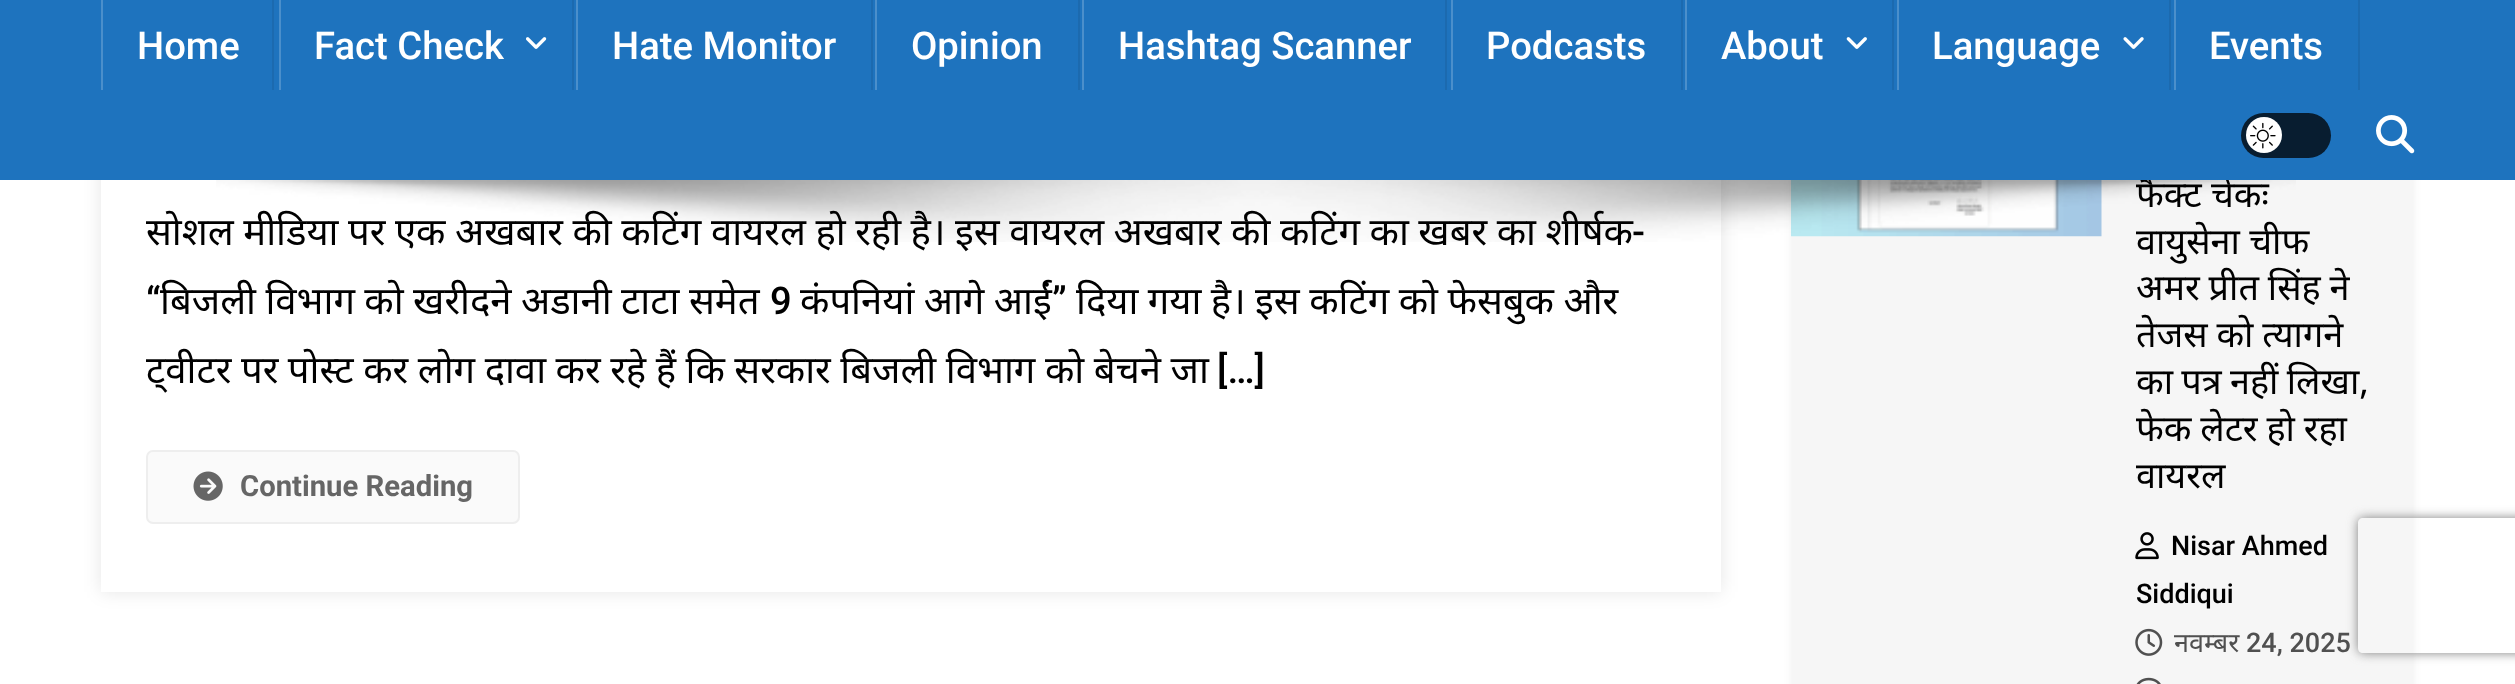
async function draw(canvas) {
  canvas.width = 2515;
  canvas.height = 684;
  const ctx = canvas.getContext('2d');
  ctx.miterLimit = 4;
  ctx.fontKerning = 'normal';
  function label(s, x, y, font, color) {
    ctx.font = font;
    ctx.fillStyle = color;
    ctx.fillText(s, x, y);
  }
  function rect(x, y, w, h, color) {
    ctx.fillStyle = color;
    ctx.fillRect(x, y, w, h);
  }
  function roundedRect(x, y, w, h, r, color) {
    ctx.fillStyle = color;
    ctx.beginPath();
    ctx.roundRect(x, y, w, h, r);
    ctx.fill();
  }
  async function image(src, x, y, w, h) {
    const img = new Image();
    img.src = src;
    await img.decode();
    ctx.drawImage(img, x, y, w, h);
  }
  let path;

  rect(0, 0, 2515, 684, '#fff');
  ctx.save();
  path = new Path2D('M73 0H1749V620H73ZM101-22H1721V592H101Z');
  ctx.clip(path, 'evenodd');
  ctx.fillStyle = '#0000001a';
  ctx.filter = 'blur(9px)';
  ctx.beginPath();
  ctx.rect(101, -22, 1620, 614);
  ctx.fill();
  ctx.filter = 'none';
  ctx.restore();
  ctx.fillStyle = '#000';
  ctx.filter = 'blur(11px)';
  ctx.beginPath();
  ctx.rect(1811, -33, 583, 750);
  ctx.fill();
  ctx.filter = 'none';
  rect(1792, 180, 621, 504, '#f6f6f6');
  label('फैक्ट चेकः', 2136, 207, '36px Noto Sans', '#000');
  rect(0, 0, 2515, 180, '#1e73be');
  rect(272, 0, 2, 90, '#1c6aaf');
  rect(101, 0, 2, 90, '#4b8fcb');
  label('Home', 137, 59, '500 38.25px Roboto', '#fff');
  rect(572, 0, 2, 90, '#1c6aaf');
  rect(279, 0, 2, 90, '#4b8fcb');
  label('Fact Check', 314, 59, '500 38.25px Roboto', '#fff');
  await image('assets/img1.png', 526, 37, 21, 12);
  rect(871, 0, 2, 90, '#1c6aaf');
  rect(576, 0, 2, 90, '#4b8fcb');
  label('Hate Monitor', 612, 59, '500 38.25px Roboto', '#fff');
  rect(1078, 0, 2, 90, '#1c6aaf');
  rect(875, 0, 2, 90, '#4b8fcb');
  label('Opinion', 911, 59, '500 38.25px Roboto', '#fff');
  rect(1445, 0, 2, 90, '#1c6aaf');
  rect(1082, 0, 2, 90, '#4b8fcb');
  label('Hashtag Scanner', 1118, 59, '500 38.25px Roboto', '#fff');
  rect(1681, 0, 2, 90, '#1c6aaf');
  rect(1451, 0, 2, 90, '#4b8fcb');
  label('Podcasts', 1486, 59, '500 38.25px Roboto', '#fff');
  rect(1892, 0, 2, 90, '#1c6aaf');
  rect(1685, 0, 2, 90, '#4b8fcb');
  label('About', 1721, 59, '500 38.25px Roboto', '#fff');
  await image('assets/img2.png', 1846, 37, 21, 12);
  rect(2169, 0, 2, 90, '#1c6aaf');
  rect(1897, 0, 2, 90, '#4b8fcb');
  label('Language', 1932, 59, '500 38.25px Roboto', '#fff');
  await image('assets/img3.png', 2123, 37, 21, 12);
  rect(2358, 0, 2, 90, '#1c6aaf');
  rect(2174, 0, 2, 90, '#4b8fcb');
  label('Events', 2209, 59, '500 38.25px Roboto', '#fff');
  roundedRect(2241, 113, 90, 45, 22.5, '#081d30');
  ctx.fillStyle = '#fff';
  ctx.beginPath();
  ctx.arc(2264, 135, 18, 0, 2 * Math.PI);
  ctx.fill();
  await image('assets/img4.png', 2250, 122, 26, 27);
  await image('assets/img5.png', 2376, 115, 39, 39);
  ctx.wordSpacing = '-0.4px';
  label('सोशल मीडिया पर एक अखबार की कटिंग वायरल हो रही है। इस वायरल अखबार की कटिंग का खबर का शीर्षक', 146, 245, '38.25px Noto Sans', '#000');
  ctx.wordSpacing = '0px';
  label('-', 1632, 245, '500 38.25px Roboto', '#000');
  await image('assets/img8.png', 1791, 180, 311, 57);
  label('वायुसेना चीफ', 2136, 254, '36px Noto Sans', '#000');
  await image('assets/img6.png', 216, 180, 2080, 62);
  label('“', 146, 314, '500 38.25px Roboto', '#000');
  ctx.wordSpacing = '-0.5px';
  label('बिजली विभाग को खरीदने अडानी टाटा समेत', 160, 314, '38.25px Noto Sans', '#000');
  ctx.wordSpacing = '0px';
  label('9', 770, 314, '500 38.25px Roboto', '#000');
  ctx.wordSpacing = '-0.5px';
  label('कंपनियां आगे आईं', 800, 314, '38.25px Noto Sans', '#000');
  ctx.wordSpacing = '0px';
  label('”', 1052, 314, '500 38.25px Roboto', '#000');
  ctx.wordSpacing = '-0.5px';
  label('दिया गया है। इस कटिंग को फेसबुक और', 1076, 314, '38.25px Noto Sans', '#000');
  ctx.wordSpacing = '-0.4px';
  label('ट्वीटर पर पोस्ट कर लोग दावा कर रहे हैं कि सरकार बिजली विभाग को बेचने जा', 146, 383, '38.25px Noto Sans', '#000');
  ctx.wordSpacing = '0px';
  label('[…]', 1217, 383, '500 38.25px Roboto', '#000');
  ctx.fillStyle = '#fafafa';
  ctx.beginPath();
  ctx.roundRect(147, 451, 372, 72, 6);
  ctx.fill();
  ctx.strokeStyle = '#eee';
  ctx.lineWidth = 2;
  ctx.stroke();
  await image('assets/img7.png', 193, 471, 30, 30);
  label('Continue Reading', 240, 496, 'bold 29.25px Roboto', '#666');
  ctx.wordSpacing = '-0.5px';
  label('अमर प्रीत सिंह ने', 2136, 300, '36px Noto Sans', '#000');
  label('तेजस को त्यागने', 2136, 347, '36px Noto Sans', '#000');
  ctx.wordSpacing = '-1px';
  label('का पत्र नहीं लिखा,', 2136, 394, '36px Noto Sans', '#000');
  ctx.wordSpacing = '-0.5px';
  label('फेक लेटर हो रहा', 2136, 441, '36px Noto Sans', '#000');
  ctx.wordSpacing = '0px';
  label('वायरल', 2136, 488, '36px Noto Sans', '#000');
  await image('assets/img9.png', 2135, 532, 24, 28);
  label('Nisar Ahmed', 2171, 555, '500 27px Roboto', '#000');
  label('Siddiqui', 2136, 603, '500 27px Roboto', '#000');
  await image('assets/img10.png', 2135, 628, 28, 28);
  label('नवम्बर', 2174, 652, '27px Noto Sans', '#505050');
  label('24, 2025', 2246, 652, '500 27px Roboto', '#505050');
  await image('assets/img11.png', 2136, 677, 25, 7);
  ctx.save();
  path = new Path2D('M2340 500H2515V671H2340ZM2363 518H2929C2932 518 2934 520 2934 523V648C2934 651 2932 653 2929 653H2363C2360 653 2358 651 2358 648V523C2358 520 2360 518 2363 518Z');
  ctx.clip(path, 'evenodd');
  ctx.fillStyle = '#808080';
  ctx.filter = 'blur(5.5px)';
  ctx.beginPath();
  ctx.roundRect(2358, 518, 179, 135, 5);
  ctx.fill();
  ctx.filter = 'none';
  ctx.restore();
}

draw(document.querySelector('canvas'));
